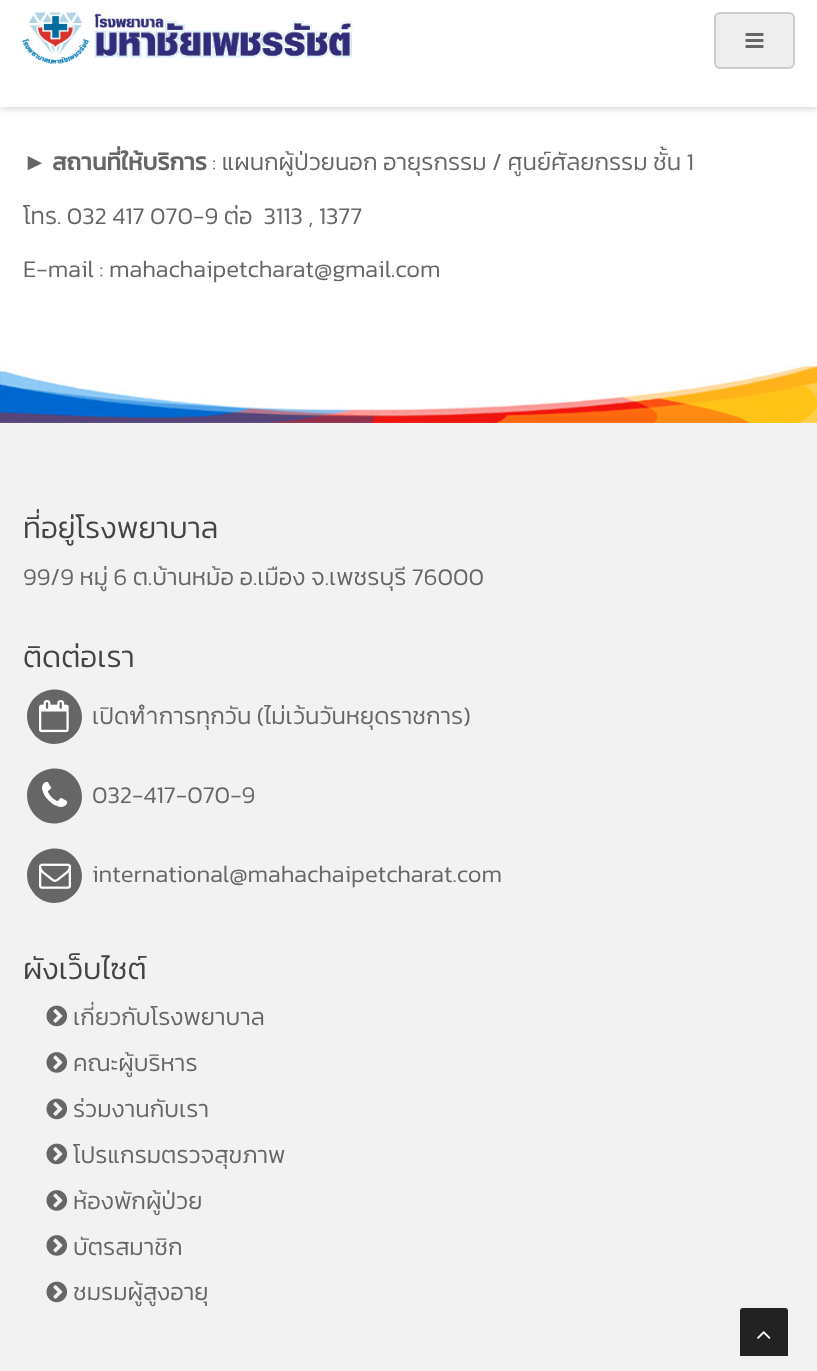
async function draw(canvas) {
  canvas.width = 817;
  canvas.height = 1371;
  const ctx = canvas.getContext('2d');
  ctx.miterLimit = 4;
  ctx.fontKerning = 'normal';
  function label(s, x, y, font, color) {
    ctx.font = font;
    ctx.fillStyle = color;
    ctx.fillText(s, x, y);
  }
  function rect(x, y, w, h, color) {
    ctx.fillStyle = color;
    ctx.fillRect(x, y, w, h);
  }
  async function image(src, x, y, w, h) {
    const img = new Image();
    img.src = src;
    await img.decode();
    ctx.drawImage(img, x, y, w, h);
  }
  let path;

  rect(0, 0, 817, 1371, '#f2f2f2');
  rect(0, 107, 817, 252, '#fff');
  ctx.fillStyle = '#00000033';
  ctx.filter = 'blur(4.5px)';
  ctx.beginPath();
  ctx.rect(0, 2, 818, 106);
  ctx.fill();
  ctx.filter = 'none';
  rect(0, 0, 817, 107, '#fff');
  await image('assets/img1.png', 22, 12, 331, 53);
  ctx.fillStyle = '#eee';
  ctx.beginPath();
  ctx.roundRect(715, 13, 79, 55, 5);
  ctx.fill();
  ctx.strokeStyle = '#ccc';
  ctx.lineWidth = 2;
  ctx.stroke();
  await image('assets/img2.png', 745, 33, 19, 15);
  label('►', 23, 170, 'bold 24px Liberation Serif', '#666');
  label('สถานที่ให้บริการ', 52, 170, 'bold 24px Kanit', '#666');
  label(': แผนกผู้ป่วยนอก อายุรกรรม / ศูนย์ศัลยกรรม ชั้น 1', 212, 170, '300 24px Kanit', '#666');
  label('โทร. 032 417 070-9 ต่อ  3113 , 1377', 23, 224, '300 24px Kanit', '#666');
  label('E-mail : mahachaipetcharat@gmail.com', 23, 277, '300 24px Kanit', '#666');
  await image('assets/img3.png', 0, 359, 817, 64);
  label('ที่อยู่โรงพยาบาล', 23, 538, '300 30px Kanit', '#444');
  label('99/9 หมู่ 6 ต.บ้านหม้อ อ.เมือง จ.เพชรบุรี 76000', 23, 585, '300 24px Kanit', '#666');
  label('ติดต่อเรา', 23, 667, '300 30px Kanit', '#444');
  ctx.fillStyle = '#666';
  path = new Path2D('M78 703C81 708 82 713 82 718C80 745 44 754 31 730C28 726 27 720 27 715C29 688 65 680 78 703Z');
  ctx.fill(path);
  await image('assets/img4.png', 39, 700, 30, 33);
  label('เปิดทำการทุกวัน (ไม่เว้นวันหยุดราชการ)', 92, 724, '300 24px Kanit', '#666');
  path = new Path2D('M78 782C81 787 82 793 82 798C80 825 44 833 31 810C28 805 27 800 27 794C29 767 65 759 78 782Z');
  ctx.fill(path);
  await image('assets/img5.png', 42, 781, 26, 26);
  label('032-417-070-9', 92, 803, '300 24px Kanit', '#666');
  path = new Path2D('M78 862C81 867 82 872 82 877C80 904 44 913 31 889C28 885 27 879 27 874C29 847 65 839 78 862Z');
  ctx.fill(path);
  await image('assets/img6.png', 39, 863, 32, 26);
  label('international@mahachaipetcharat.com', 92, 882, '300 24px Kanit', '#666');
  label('ผังเว็บไซต์', 23, 979, '300 30px Kanit', '#444');
  await image('assets/img7.png', 46, 1005, 22, 22);
  label('เกี่ยวกับโรงพยาบาล', 73, 1025, '300 24px Kanit', '#666');
  await image('assets/img8.png', 46, 1052, 22, 21);
  label('คณะผู้บริหาร', 73, 1071, '300 24px Kanit', '#666');
  await image('assets/img7.png', 46, 1098, 22, 22);
  label('ร่วมงานกับเรา', 73, 1117, '300 24px Kanit', '#666');
  await image('assets/img7.png', 46, 1143, 22, 22);
  label('โปรแกรมตรวจสุขภาพ', 73, 1163, '300 24px Kanit', '#666');
  await image('assets/img8.png', 46, 1190, 22, 21);
  label('ห้องพักผู้ป่วย', 73, 1209, '300 24px Kanit', '#666');
  await image('assets/img8.png', 46, 1235, 22, 21);
  label('บัตรสมาชิก', 73, 1255, '300 24px Kanit', '#666');
  await image('assets/img7.png', 46, 1281, 22, 22);
  label('ชมรมผู้สูงอายุ', 73, 1300, '300 24px Kanit', '#666');
  ctx.fillStyle = '#222';
  ctx.beginPath();
  ctx.roundRect(740, 1308, 48, 48, [3, 3, 0, 0]);
  ctx.fill();
  await image('assets/img9.png', 757, 1331, 14, 8);
}

draw(document.querySelector('canvas'));
